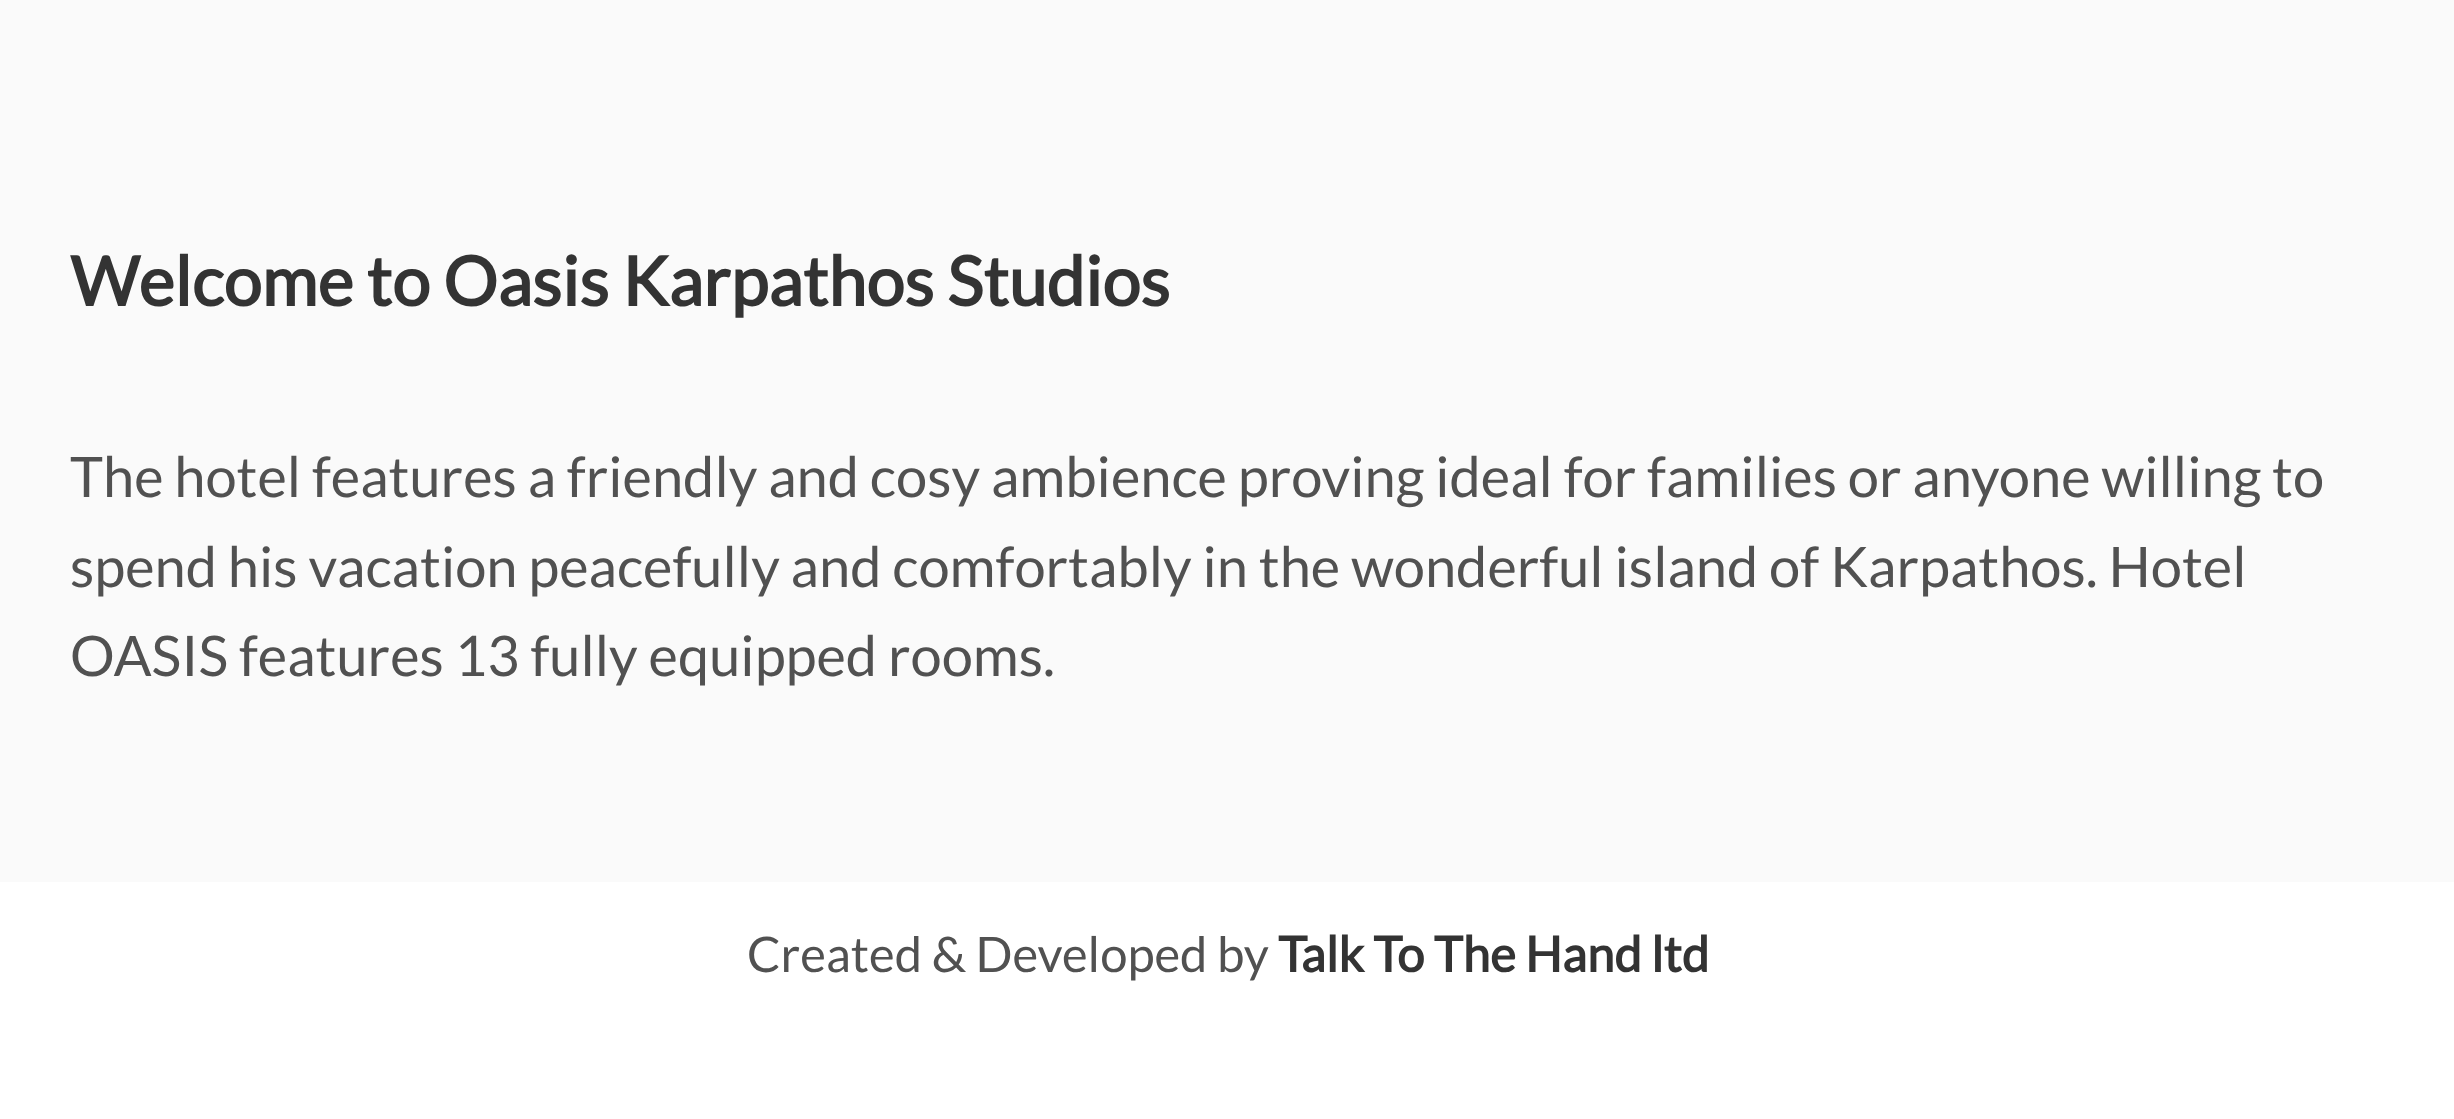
async function draw(canvas) {
  canvas.width = 2454;
  canvas.height = 1119;
  const ctx = canvas.getContext('2d');
  ctx.miterLimit = 4;
  ctx.fontKerning = 'normal';
  function label(s, x, y, font, color) {
    ctx.font = font;
    ctx.fillStyle = color;
    ctx.fillText(s, x, y);
  }
  function rect(x, y, w, h, color) {
    ctx.fillStyle = color;
    ctx.fillRect(x, y, w, h);
  }

  rect(0, 0, 2454, 1119, '#fafafa');
  label('Welcome to Oasis Karpathos Studios', 70, 306, 'bold 68.25px Lato', '#333');
  label('The hotel features a friendly and cosy ambience proving ideal for families or anyone willing to', 70, 497, '56px Lato', '#515151');
  label('spend his vacation peacefully and comfortably in the wonderful island of Karpathos. Hotel', 70, 587, '56px Lato', '#515151');
  label('OASIS features 13 fully equipped rooms.', 70, 676, '56px Lato', '#515151');
  rect(0, 882, 2454, 237, '#fff');
  label('Created & Developed by', 747, 972, '49px Lato', '#515151');
  label('Talk To The Hand ltd', 1278, 972, 'bold 49px Lato', '#333');
}

draw(document.querySelector('canvas'));
